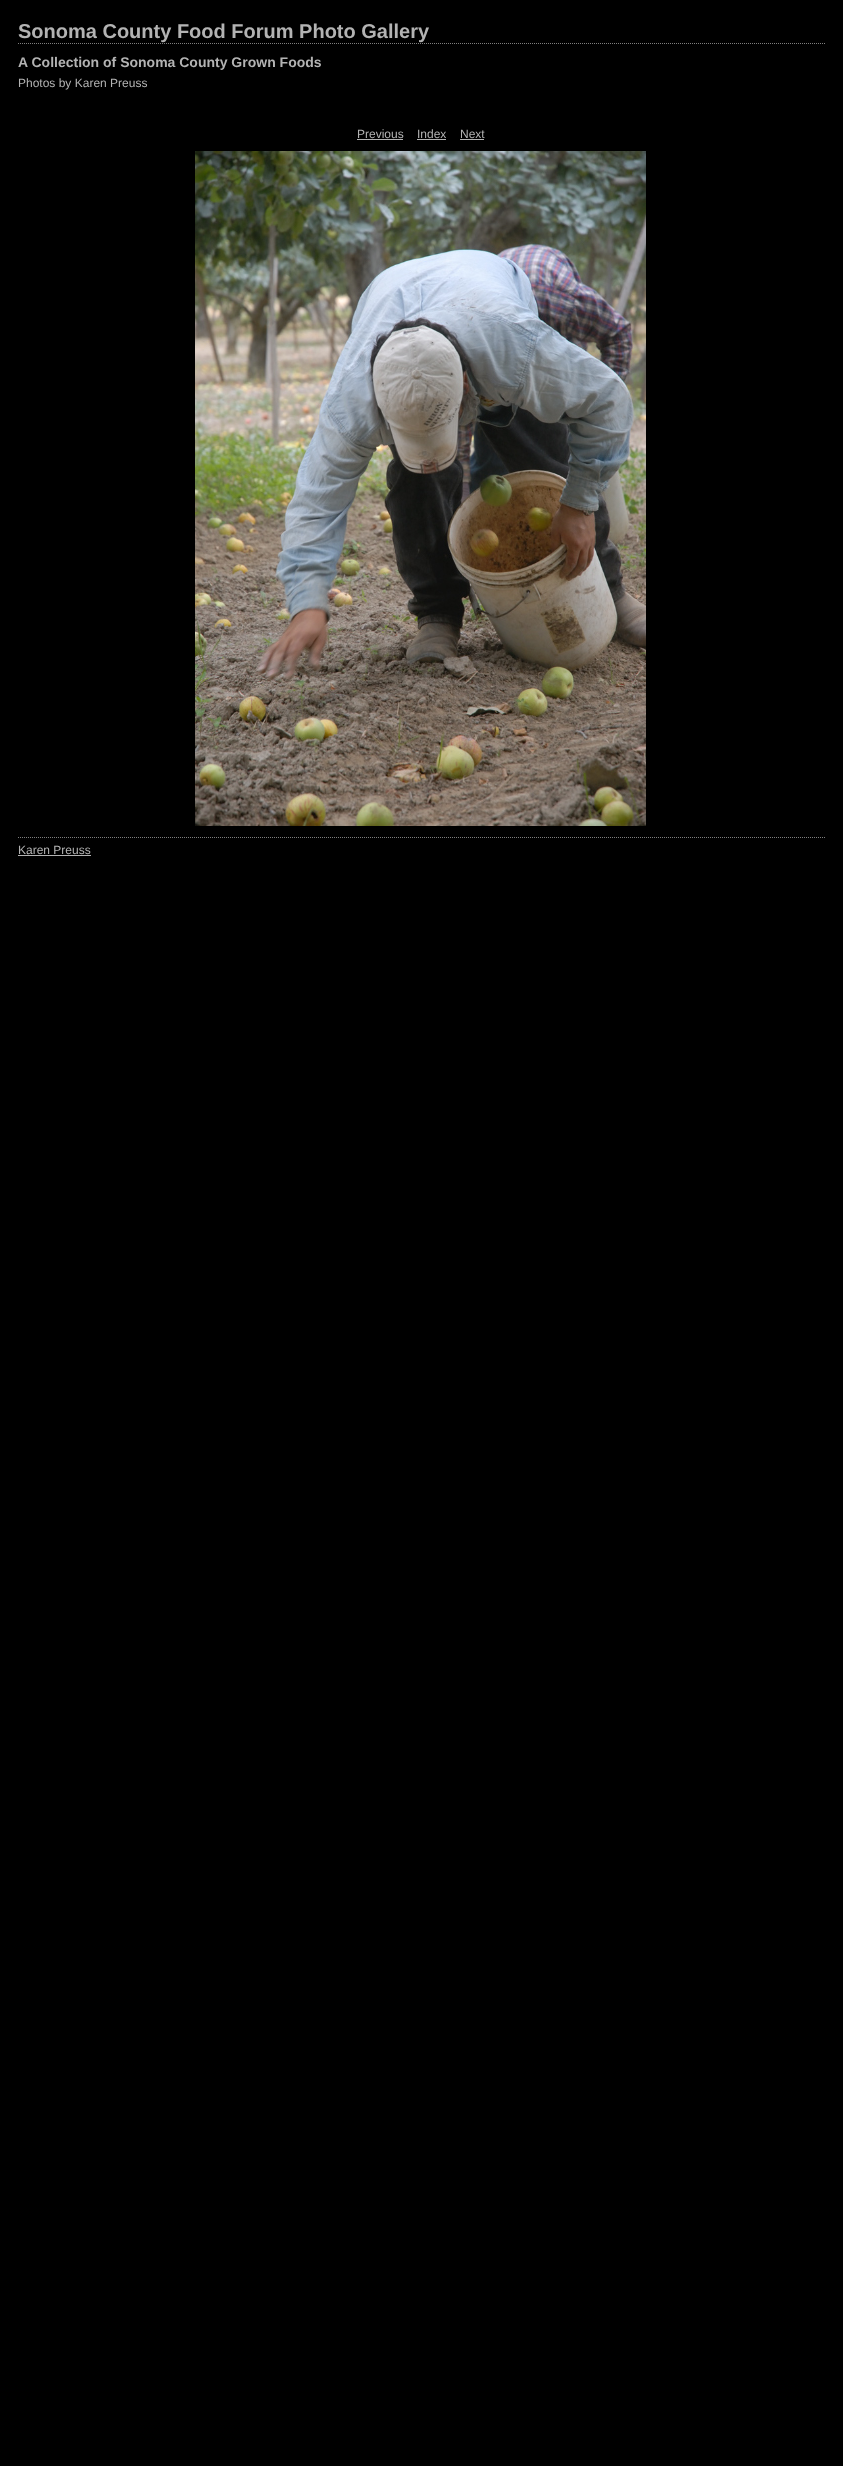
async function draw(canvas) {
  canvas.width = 843;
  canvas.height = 2466;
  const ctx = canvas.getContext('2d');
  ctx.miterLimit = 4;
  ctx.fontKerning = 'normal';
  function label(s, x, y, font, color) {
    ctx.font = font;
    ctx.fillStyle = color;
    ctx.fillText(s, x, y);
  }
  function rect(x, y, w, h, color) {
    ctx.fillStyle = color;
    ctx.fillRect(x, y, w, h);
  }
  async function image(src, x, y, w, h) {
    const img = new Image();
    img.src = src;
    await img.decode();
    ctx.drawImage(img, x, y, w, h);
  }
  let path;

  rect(0, 0, 843, 2466, '#000');
  path = new Path2D('M18 43.5H825');
  ctx.strokeStyle = '#7f7f7f';
  ctx.setLineDash([1, 1]);
  ctx.stroke(path);
  label('Sonoma County Food Forum Photo Gallery', 18, 38, 'bold 20px Liberation Sans', '#b3b3b3');
  label('A Collection of Sonoma County Grown Foods', 18, 67, 'bold 14px Liberation Sans', '#b3b3b3');
  label('Photos by Karen Preuss', 18, 87, '12px Liberation Sans', '#b3b3b3');
  label('Previous', 357, 138, '12px Liberation Sans', '#b3b3b3');
  rect(357, 139, 46, 1, '#b3b3b3');
  label('Index', 417, 138, '12px Liberation Sans', '#b3b3b3');
  rect(417, 139, 29, 1, '#b3b3b3');
  label('Next', 460, 138, '12px Liberation Sans', '#b3b3b3');
  rect(460, 139, 24, 1, '#b3b3b3');
  await image('assets/img1.png', 195, 151, 451, 675);
  path = new Path2D('M18 837.5H825');
  ctx.stroke(path);
  label('Karen Preuss', 18, 854, '12px Liberation Sans', '#b3b3b3');
  rect(18, 855, 73, 1, '#b3b3b3');
}

draw(document.querySelector('canvas'));
